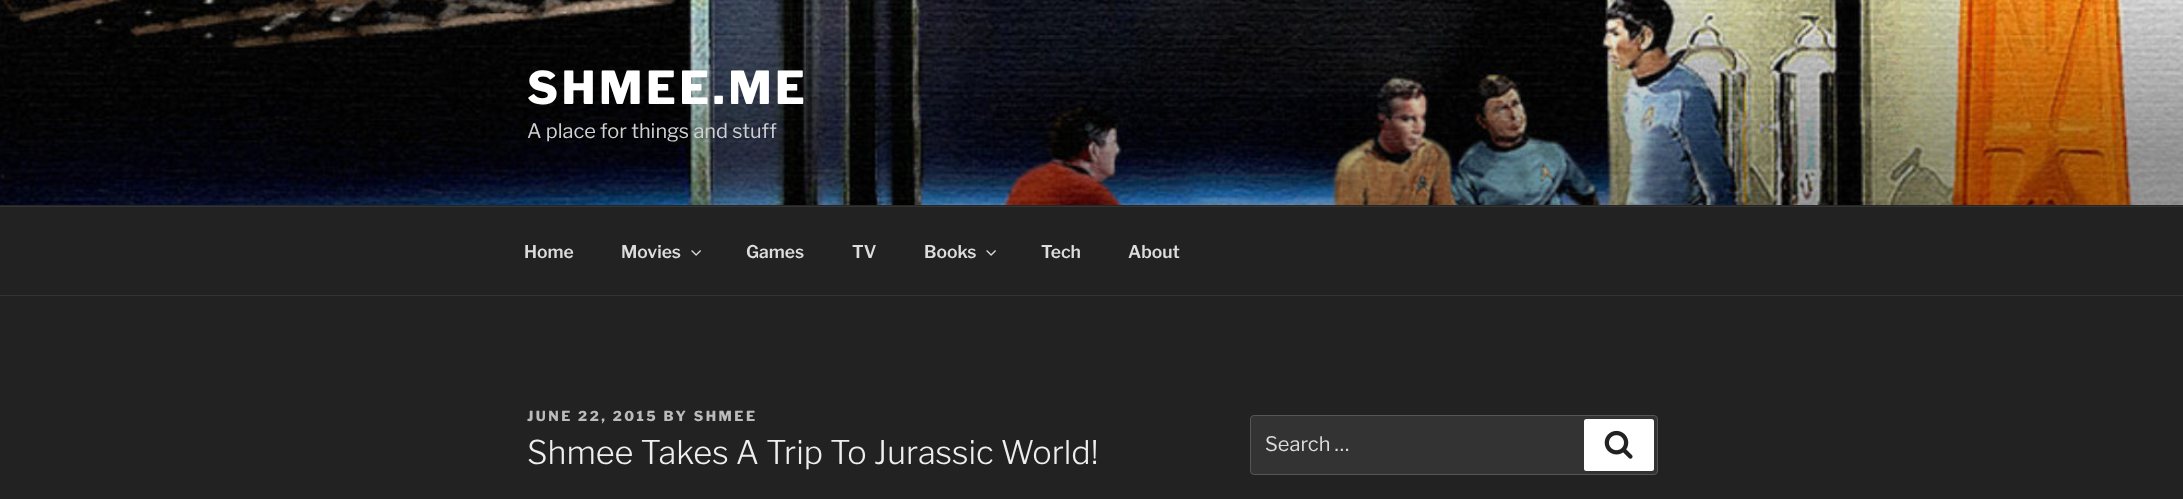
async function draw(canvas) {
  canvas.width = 2183;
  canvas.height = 499;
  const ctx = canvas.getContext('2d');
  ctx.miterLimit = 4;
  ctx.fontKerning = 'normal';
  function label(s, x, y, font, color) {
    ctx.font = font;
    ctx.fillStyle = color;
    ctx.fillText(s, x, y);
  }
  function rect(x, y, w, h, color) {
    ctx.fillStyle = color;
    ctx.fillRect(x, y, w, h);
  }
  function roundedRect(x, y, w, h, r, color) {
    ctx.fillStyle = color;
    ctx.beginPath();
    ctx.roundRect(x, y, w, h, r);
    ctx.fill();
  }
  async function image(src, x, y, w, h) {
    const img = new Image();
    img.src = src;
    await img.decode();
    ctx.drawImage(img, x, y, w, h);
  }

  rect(0, 0, 2183, 499, '#222');
  rect(0, 205, 2183, 1, '#262626');
  await image('assets/img1.png', 0, 0, 2183, 205);
  ctx.letterSpacing = '3.5px';
  label('SHMEE.ME', 527, 104, '100 45px Libre Franklin', '#fff');
  ctx.letterSpacing = '0px';
  label('A place for things and stuff', 527, 138, '100 20px "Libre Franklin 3"', '#d0d1d2');
  rect(0, 206, 2183, 1, '#333');
  rect(0, 295, 2183, 1, '#333');
  label('Home', 524, 258, '100 17.5px "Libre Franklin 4"', '#ddd');
  label('Movies', 621, 258, '100 17.5px "Libre Franklin 4"', '#ddd');
  await image('assets/img2.png', 691, 250, 10, 6);
  label('Games', 746, 258, '100 17.5px "Libre Franklin 4"', '#ddd');
  label('TV', 852, 258, '100 17.5px "Libre Franklin 4"', '#ddd');
  label('Books', 924, 258, '100 17.5px "Libre Franklin 4"', '#ddd');
  await image('assets/img2.png', 986, 250, 10, 6);
  label('Tech', 1041, 258, '100 17.5px "Libre Franklin 4"', '#ddd');
  label('About', 1128, 258, '100 17.5px "Libre Franklin 4"', '#ddd');
  ctx.letterSpacing = '2.5px';
  label('JUNE 22, 2015 BY SHMEE', 527, 421, '100 13.75px Libre Franklin', '#bbb');
  ctx.letterSpacing = '0px';
  label('Shmee Takes A Trip To Jurassic World!', 527, 464, '100 32.5px "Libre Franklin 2"', '#eee');
  ctx.fillStyle = '#333';
  ctx.beginPath();
  ctx.roundRect(1250.5, 415.5, 407, 59, 3.5);
  ctx.fill();
  ctx.strokeStyle = '#555';
  ctx.stroke();
  label('Search …', 1265, 451, '100 20px "Libre Franklin 3"', '#ddd');
  roundedRect(1584, 419, 70, 52, 2.5, '#fff');
  await image('assets/img3.png', 1604, 430, 29, 29);
}

draw(document.querySelector('canvas'));
